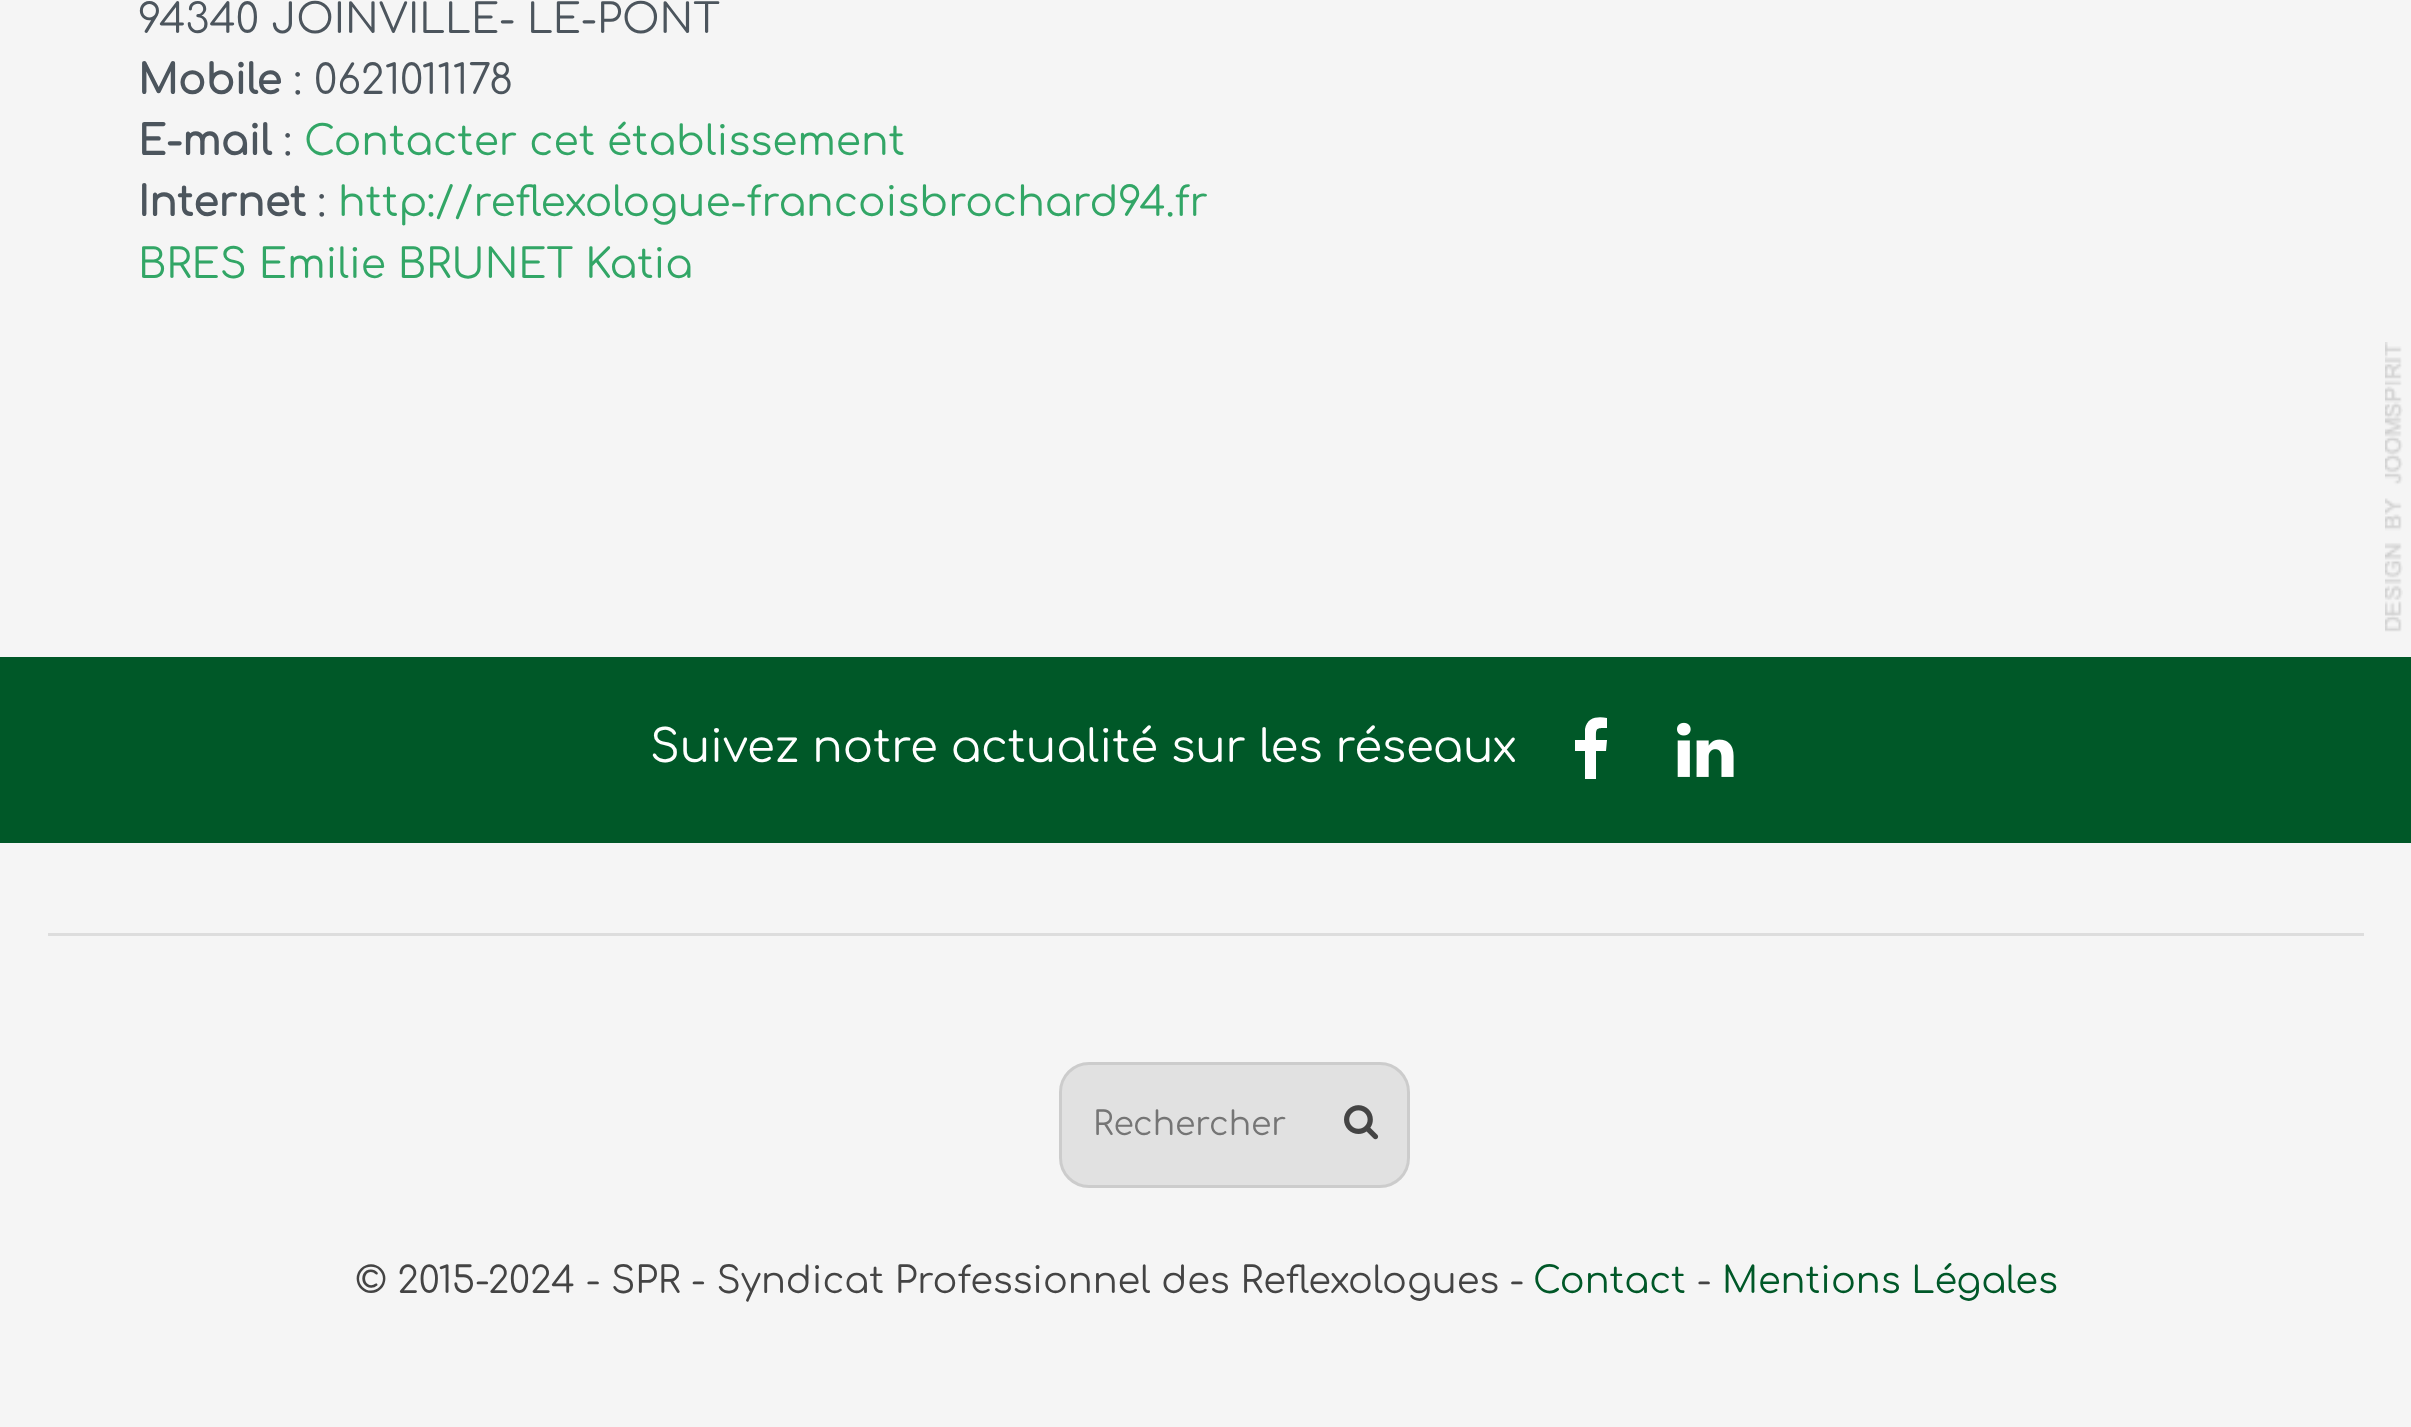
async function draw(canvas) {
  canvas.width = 2411;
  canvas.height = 1427;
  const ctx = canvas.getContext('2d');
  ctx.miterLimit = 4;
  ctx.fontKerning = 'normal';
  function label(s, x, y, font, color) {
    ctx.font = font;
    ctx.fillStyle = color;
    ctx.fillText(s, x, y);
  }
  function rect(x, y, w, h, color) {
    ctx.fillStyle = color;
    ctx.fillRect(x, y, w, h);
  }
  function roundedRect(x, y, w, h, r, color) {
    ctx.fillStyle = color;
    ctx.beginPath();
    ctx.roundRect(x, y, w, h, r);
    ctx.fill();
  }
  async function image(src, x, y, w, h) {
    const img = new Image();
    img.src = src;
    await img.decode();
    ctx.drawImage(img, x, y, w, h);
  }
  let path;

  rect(0, 0, 2411, 1427, '#f5f5f5');
  label('94340 JOINVILLE- LE-PONT', 138, 33, '40.8px Comfortaa', '#4c555d');
  label('Mobile', 138, 94, 'bold 40.8px Comfortaa', '#4c555d');
  label(': 0621011178', 294, 94, '40.8px Comfortaa', '#4c555d');
  label('E-mail', 138, 155, 'bold 40.8px Comfortaa', '#4c555d');
  label(':', 284, 155, '40.8px Comfortaa', '#4c555d');
  label('Contacter cet établissement', 304, 155, '40.8px Comfortaa', '#32a666');
  label('Internet', 138, 216, 'bold 40.8px Comfortaa', '#4c555d');
  label(':', 318, 216, '40.8px Comfortaa', '#4c555d');
  label('http://reflexologue-francoisbrochard94.fr', 338, 216, '40.8px Comfortaa', '#32a666');
  label('BRES Emilie BRUNET Katia', 138, 278, '40.8px Comfortaa', '#32a666');
  await image('assets/img1.png', 2385, 342, 18, 290);
  rect(0, 657, 2411, 186, '#005828');
  label('Suivez notre actualité sur les réseaux', 650, 762, '44.9px Comfortaa', '#fff');
  path = new Path2D('M1607 718V728C1595 728 1596 728 1596 740H1607L1606 751H1596V779H1585V751H1575V740H1585V729C1587 717 1598 716 1607 718Z');
  ctx.fill(path);
  await image('assets/img2.png', 1677, 722, 57, 55);
  rect(48, 933, 2316, 3, '#ddd');
  roundedRect(1059, 1062, 351, 126, 30, '#e1e1e1');
  ctx.beginPath();
  ctx.roundRect(1060.5, 1063.5, 348, 123, 28.5);
  ctx.strokeStyle = '#00000017';
  ctx.lineWidth = 3;
  ctx.stroke();
  label('Rechercher', 1093, 1135, '33px Comfortaa', '#757575');
  await image('assets/img3.png', 1344, 1105, 35, 35);
  label('© 2015-2024 - SPR - Syndicat Professionnel des Reflexologues -', 355, 1293, '36.75px Comfortaa', '#444');
  label('Contact', 1533, 1293, '36.75px Comfortaa', '#005828');
  label('-', 1697, 1293, '36.75px Comfortaa', '#444');
  label('Mentions Légales', 1722, 1293, '36.75px Comfortaa', '#005828');
}

draw(document.querySelector('canvas'));
